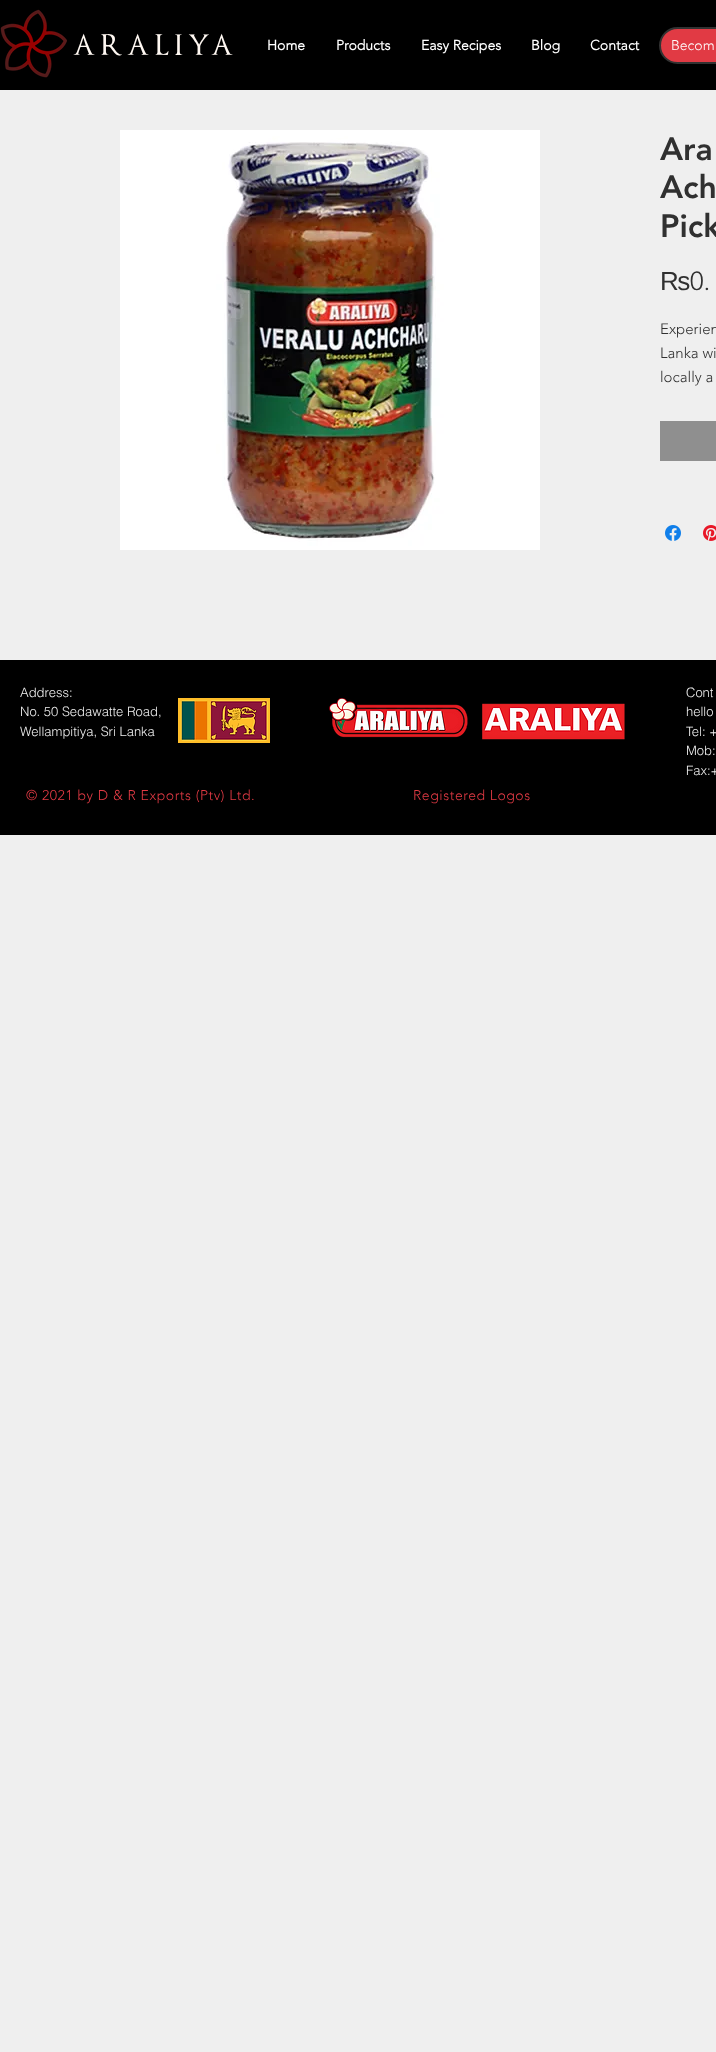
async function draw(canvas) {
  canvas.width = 716;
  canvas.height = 2052;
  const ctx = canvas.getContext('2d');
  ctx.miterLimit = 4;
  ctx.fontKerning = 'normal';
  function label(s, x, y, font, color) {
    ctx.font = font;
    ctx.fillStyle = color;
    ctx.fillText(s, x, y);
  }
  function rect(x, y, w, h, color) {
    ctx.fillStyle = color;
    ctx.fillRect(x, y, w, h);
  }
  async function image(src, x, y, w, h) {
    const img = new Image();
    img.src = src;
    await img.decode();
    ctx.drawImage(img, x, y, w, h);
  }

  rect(0, 0, 716, 2052, '#efefef');
  rect(0, 0, 716, 90, '#000');
  await image('assets/img1.png', 0, 9, 67, 69);
  ctx.letterSpacing = '5.5px';
  label('ARALIYA', 73, 55, '500 28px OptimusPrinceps', '#fff8f2');
  ctx.letterSpacing = '0px';
  label('Home', 267, 50, 'bold 14px "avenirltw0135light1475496"', '#fff');
  label('Products', 336, 50, 'bold 14px "avenirltw0135light1475496"', '#fff');
  label('Easy Recipes', 421, 50, 'bold 14px "avenirltw0135light1475496"', '#fff');
  label('Blog', 531, 50, 'bold 14px "avenirltw0135light1475496"', '#fff');
  label('Contact', 590, 50, 'bold 14px "avenirltw0135light1475496"', '#fff');
  ctx.fillStyle = '#e13a44';
  ctx.beginPath();
  ctx.roundRect(660, 28, 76, 35, 17.5);
  ctx.fill();
  ctx.strokeStyle = '#323232';
  ctx.lineWidth = 2;
  ctx.stroke();
  label('Becom', 671, 50, '300 14px "avenirltw0135light1475496"', '#fff');
  await image('assets/img2.png', 120, 130, 420, 420);
  label('Ara', 660, 160, '900 32px "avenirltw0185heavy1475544"', '#303030');
  label('Ach', 660, 198, '900 32px "avenirltw0185heavy1475544"', '#303030');
  label('Pick', 660, 237, '900 32px "avenirltw0185heavy1475544"', '#303030');
  label('₨', 660, 290, '26px Liberation Sans', '#303030');
  label('0.', 690, 290, '300 26px "avenirltw0135light1475496"', '#303030');
  label('Experien', 660, 334, '300 15px "avenirltw0135light1475496"', '#303030');
  label('Lanka wi', 660, 358, '300 15px "avenirltw0135light1475496"', '#303030');
  label('locally a', 660, 382, '300 15px "avenirltw0135light1475496"', '#303030');
  rect(660, 421, 56, 40, '#8f8f8f');
  await image('assets/img3.png', 665, 525, 16, 16);
  await image('assets/img4.png', 703, 525, 13, 16);
  rect(0, 660, 716, 175, '#000');
  label('Address:', 20, 697, '300 13px helvetica', '#efefef');
  label('No. 50 Sedawatte Road,', 20, 716, '300 13px helvetica', '#efefef');
  label('Wellampitiya, Sri Lanka', 20, 736, '300 13px helvetica', '#efefef');
  await image('assets/img5.png', 178, 698, 92, 45);
  await image('assets/img6.png', 329, 698, 139, 40);
  await image('assets/img7.png', 482, 703, 143, 37);
  label('Cont', 686, 697, '300 13px helvetica', '#efefef');
  label('hello', 686, 716, '300 13px helvetica', '#efefef');
  label('Tel: +', 686, 736, '300 13px helvetica', '#efefef');
  label('Mob:', 686, 755, '300 13px helvetica', '#efefef');
  label('Fax:+', 686, 775, '300 13px helvetica', '#efefef');
  ctx.letterSpacing = '0.55px';
  label('© 2021 by D & R Exports (Ptv) Ltd.', 26, 800, '300 14px "avenirltw0135light1475496"', '#e13a44');
  label('Registered Logos', 413, 800, '300 14px "avenirltw0135light1475496"', '#e13a44');
}

draw(document.querySelector('canvas'));
